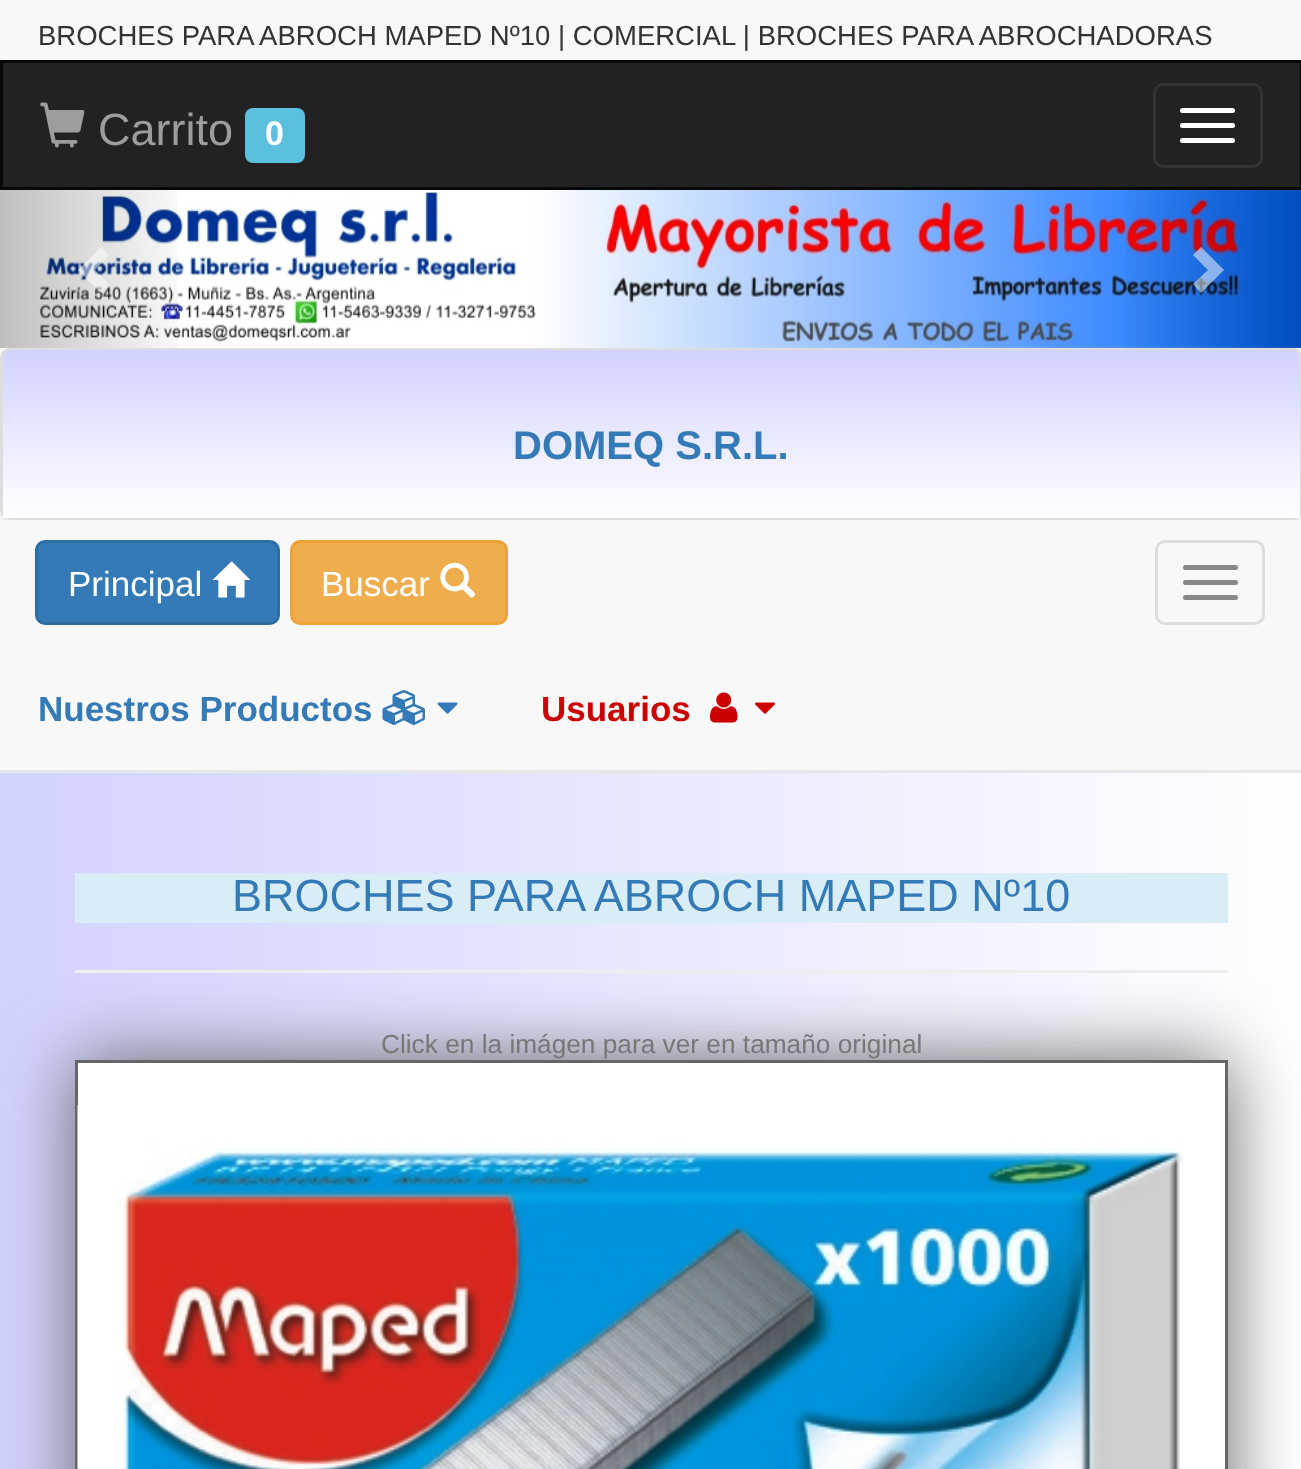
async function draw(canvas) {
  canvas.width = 1301;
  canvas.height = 1469;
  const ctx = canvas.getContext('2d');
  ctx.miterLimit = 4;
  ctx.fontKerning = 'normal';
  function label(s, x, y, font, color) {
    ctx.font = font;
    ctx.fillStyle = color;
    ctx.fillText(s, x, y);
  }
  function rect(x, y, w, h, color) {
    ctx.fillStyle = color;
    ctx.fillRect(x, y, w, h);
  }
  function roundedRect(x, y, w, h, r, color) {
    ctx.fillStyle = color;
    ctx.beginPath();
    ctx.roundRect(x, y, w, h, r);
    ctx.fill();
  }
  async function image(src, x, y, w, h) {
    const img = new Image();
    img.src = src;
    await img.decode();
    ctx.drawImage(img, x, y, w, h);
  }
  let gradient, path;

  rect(0, 0, 1301, 1469, '#f8f8f8');
  label('BROCHES PARA ABROCH MAPED Nº10 | COMERCIAL | BROCHES PARA ABROCHADORAS', 38, 45, '27.5px Liberation Sans', '#333');
  ctx.fillStyle = '#222';
  ctx.beginPath();
  ctx.rect(1.5, 61.5, 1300, 127);
  ctx.fill();
  ctx.strokeStyle = '#080808';
  ctx.lineWidth = 3;
  ctx.stroke();
  await image('assets/img1.png', 40, 102, 45, 46);
  label('Carrito', 98, 145, '45px Liberation Sans', '#9d9d9d');
  roundedRect(245, 108, 60, 55, 8, '#5bc0de');
  label('0', 265, 145, 'bold 34px Liberation Sans', '#fff');
  ctx.beginPath();
  ctx.roundRect(1154.5, 84.5, 107, 82, 8.5);
  ctx.strokeStyle = '#333';
  ctx.stroke();
  roundedRect(1180, 108, 55, 5, 2.5, '#fff');
  roundedRect(1180, 123, 55, 5, 2.5, '#fff');
  roundedRect(1180, 138, 55, 5, 2.5, '#fff');
  ctx.fillStyle = '#0000000d';
  ctx.filter = 'blur(1px)';
  ctx.beginPath();
  ctx.roundRect(0, 350, 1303, 173, 10);
  ctx.fill();
  ctx.filter = 'none';
  await image('assets/img2.png', 0, 190, 1301, 158);
  gradient = ctx.createLinearGradient(0, 269, 195, 269);
  gradient.addColorStop(0, '#00000040');
  gradient.addColorStop(1, '#00000000');
  ctx.fillStyle = gradient;
  ctx.fillRect(0, 190, 178, 158);
  ctx.fillStyle = '#ffffff80';
  path = new Path2D('M109 255L95 270L109 284L101 293L78 270L101 247Z');
  ctx.fill(path);
  gradient = ctx.createLinearGradient(1108, 269, 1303, 269);
  gradient.addColorStop(0, '#00000000');
  gradient.addColorStop(1, '#00000040');
  ctx.fillStyle = gradient;
  ctx.fillRect(1125, 190, 176, 158);
  ctx.fillStyle = '#ffffff80';
  path = new Path2D('M1224 270L1201 293L1193 284L1208 270L1193 255L1201 247Z');
  ctx.fill(path);
  ctx.beginPath();
  ctx.roundRect(1.5, 349.5, 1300, 169, 8.5);
  ctx.strokeStyle = '#ddd';
  ctx.stroke();
  gradient = ctx.createLinearGradient(651, 350, 651, 518);
  gradient.addColorStop(0, '#d2d2ff');
  gradient.addColorStop(1, '#fff');
  ctx.fillStyle = gradient;
  ctx.beginPath();
  ctx.roundRect(3, 350, 1297, 168, [8, 8, 0, 0]);
  ctx.fill();
  label('DOMEQ S.R.L.', 513, 459, 'bold 40px Liberation Sans', '#337ab7');
  rect(2, 520, 1299, 4, '#f8f8f8');
  rect(0, 770, 1301, 3, '#e7e7e7');
  ctx.fillStyle = '#337ab7';
  ctx.beginPath();
  ctx.roundRect(36.5, 541.5, 242, 82, 8.5);
  ctx.fill();
  ctx.strokeStyle = '#2e6da4';
  ctx.stroke();
  label('Principal', 68, 596, '35px Liberation Sans', '#fff');
  await image('assets/img3.png', 212, 561, 38, 37);
  ctx.fillStyle = '#f0ad4e';
  ctx.beginPath();
  ctx.roundRect(291.5, 541.5, 215, 82, 8.5);
  ctx.fill();
  ctx.strokeStyle = '#eea236';
  ctx.stroke();
  label('Buscar', 321, 596, '35px Liberation Sans', '#fff');
  await image('assets/img4.png', 440, 562, 36, 36);
  ctx.beginPath();
  ctx.roundRect(1156.5, 541.5, 107, 82, 8.5);
  ctx.strokeStyle = '#ddd';
  ctx.stroke();
  roundedRect(1183, 565, 55, 5, 2.5, '#888');
  roundedRect(1183, 580, 55, 5, 2.5, '#888');
  roundedRect(1183, 595, 55, 5, 2.5, '#888');
  label('Nuestros Productos', 38, 721, 'bold 35px Liberation Sans', '#337ab7');
  await image('assets/img5.png', 382, 690, 43, 35);
  await image('assets/img6.png', 437, 702, 21, 12);
  label('Usuarios', 541, 721, 'bold 35px Liberation Sans', '#c00');
  await image('assets/img7.png', 710, 692, 28, 31);
  await image('assets/img8.png', 755, 702, 20, 12);
  gradient = ctx.createLinearGradient(0, 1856, 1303, 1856);
  gradient.addColorStop(0, '#d2d2ff');
  gradient.addColorStop(1, '#fff');
  ctx.fillStyle = gradient;
  ctx.fillRect(0, 773, 1301, 696);
  rect(75, 970, 1153, 3, '#eee');
  rect(75, 873, 1153, 50, '#d9edf7');
  label('BROCHES PARA ABROCH MAPED Nº10', 232, 911, '45px Liberation Sans', '#337ab7');
  ctx.fillStyle = '#666';
  ctx.filter = 'blur(37.5px)';
  ctx.beginPath();
  ctx.rect(75, 1060, 1153, 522);
  ctx.fill();
  ctx.filter = 'none';
  ctx.fillStyle = '#fff';
  ctx.beginPath();
  ctx.rect(76.5, 1061.5, 1150, 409);
  ctx.fill();
  ctx.strokeStyle = '#666';
  ctx.stroke();
  await image('assets/img9.png', 77, 1105, 1107, 364);
  label('Click en la imágen para ver en tamaño original', 381, 1053, '26.25px Liberation Sans', '#777');
}

draw(document.querySelector('canvas'));
